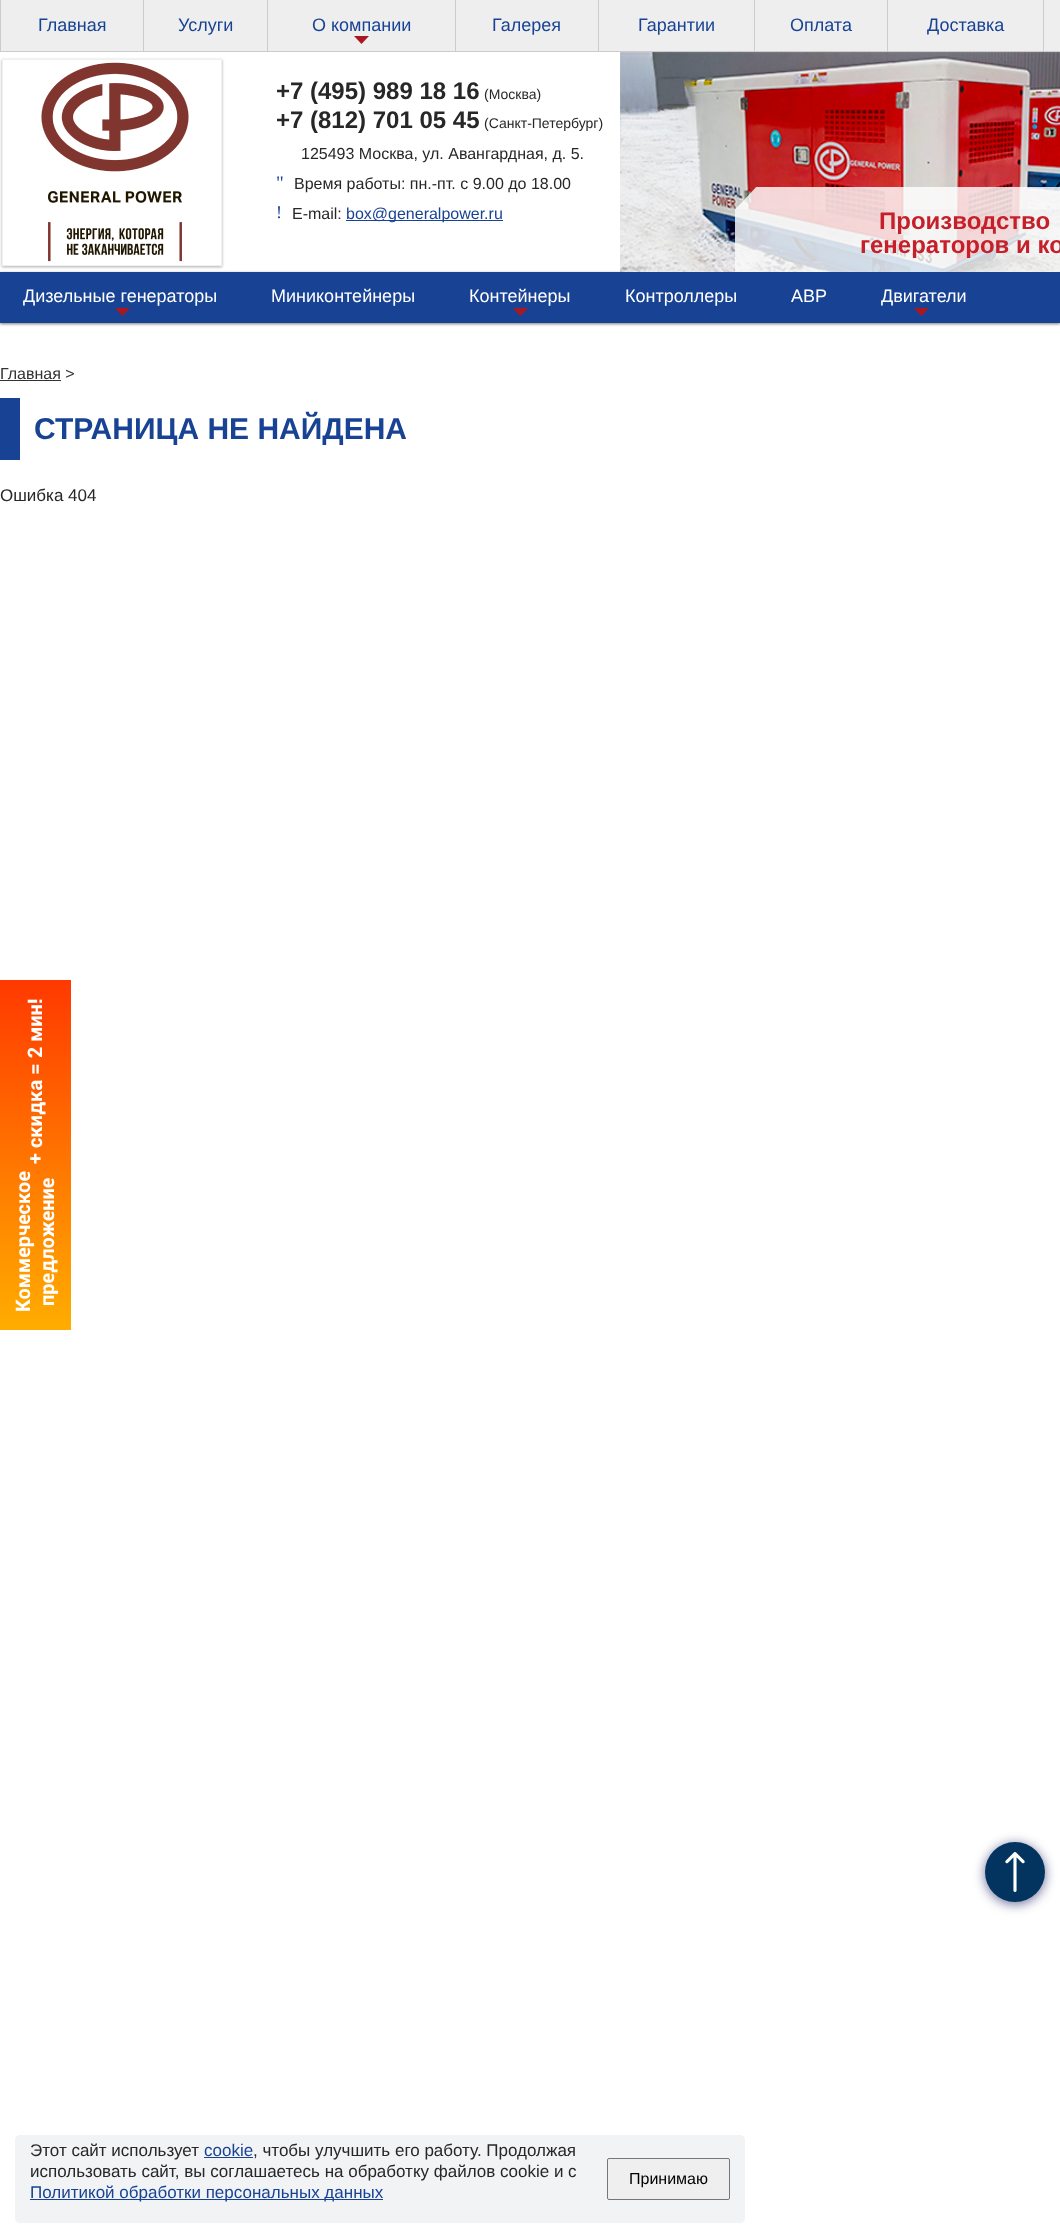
async function draw(canvas) {
  canvas.width = 1060;
  canvas.height = 2238;
  const ctx = canvas.getContext('2d');
  ctx.miterLimit = 4;
  ctx.fontKerning = 'normal';
  function label(s, x, y, font, color) {
    ctx.font = font;
    ctx.fillStyle = color;
    ctx.fillText(s, x, y);
  }
  function rect(x, y, w, h, color) {
    ctx.fillStyle = color;
    ctx.fillRect(x, y, w, h);
  }
  function roundedRect(x, y, w, h, r, color) {
    ctx.fillStyle = color;
    ctx.beginPath();
    ctx.roundRect(x, y, w, h, r);
    ctx.fill();
  }
  async function image(src, x, y, w, h) {
    const img = new Image();
    img.src = src;
    await img.decode();
    ctx.drawImage(img, x, y, w, h);
  }
  let gradient, path;

  rect(0, 0, 1060, 2238, '#fff');
  rect(1, 0, 1059, 51, '#eee');
  rect(0, 51, 1060, 1, '#ccc');
  rect(143, 0, 1, 51, '#ccc');
  rect(0, 0, 1, 51, '#ccc');
  label('Главная', 38, 31, '18px Liberation Sans', '#184394');
  rect(267, 0, 1, 51, '#ccc');
  label('Услуги', 178, 31, '18px Liberation Sans', '#184394');
  rect(455, 0, 1, 51, '#ccc');
  label('О компании', 312, 31, '18px Liberation Sans', '#184394');
  await image('assets/img1.png', 354, 36, 15, 8);
  rect(598, 0, 1, 51, '#ccc');
  label('Галерея', 492, 31, '18px Liberation Sans', '#184394');
  rect(754, 0, 1, 51, '#ccc');
  label('Гарантии', 638, 31, '18px Liberation Sans', '#184394');
  rect(887, 0, 1, 51, '#ccc');
  label('Оплата', 790, 31, '18px Liberation Sans', '#184394');
  rect(1043, 0, 1, 51, '#ccc');
  label('Доставка', 927, 31, '18px Liberation Sans', '#184394');
  ctx.fillStyle = '#01020387';
  ctx.filter = 'blur(1.5px)';
  ctx.beginPath();
  ctx.rect(0, 273, 1060, 51);
  ctx.fill();
  ctx.filter = 'none';
  rect(0, 272, 1060, 51, '#184394');
  ctx.save();
  path = new Path2D('M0 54H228V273H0ZM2 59H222V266H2Z');
  ctx.clip(path, 'evenodd');
  ctx.fillStyle = '#01020354';
  ctx.filter = 'blur(1.5px)';
  ctx.beginPath();
  ctx.rect(2, 60, 220, 207);
  ctx.fill();
  ctx.filter = 'none';
  ctx.restore();
  ctx.strokeStyle = '#f0f0f0';
  ctx.strokeRect(2.5, 59.5, 219, 206);
  await image('assets/img2.png', 41, 62, 148, 200);
  label('+7 (495) 989 18 16', 276, 99, 'bold 24px Liberation Sans', '#272727');
  label('(Москва)', 484, 99, '14px Liberation Sans', '#272727');
  label('+7 (812) 701 05 45', 276, 128, 'bold 24px Liberation Sans', '#272727');
  label('(Санкт-Петербург)', 484, 128, '14px Liberation Sans', '#272727');
  label('125493 Москва, ул. Авангардная, д. 5.', 301, 159, '16px Liberation Sans', '#272727');
  label('"', 276, 189, '19px Liberation Serif', '#184394');
  label('Время работы: пн.-пт. с 9.00 до 18.00', 294, 189, '16px Liberation Sans', '#272727');
  label('!', 276, 218, '18px Liberation Serif', '#184394');
  label('E-mail:', 292, 219, '16px Liberation Sans', '#272727');
  rect(346, 220, 157, 1, '#184394');
  label('box@generalpower.ru', 346, 219, '16px Liberation Sans', '#184394');
  await image('assets/img3.png', 620, 52, 440, 220);
  rect(735, 209, 325, 63, '#fafafad4');
  await image('assets/img4.png', 735, 187, 325, 22);
  label('Производство', 879, 229, 'bold 24px Liberation Sans', '#c61f29');
  label('генераторов и ко', 860, 253, 'bold 24px Liberation Sans', '#c61f29');
  label('Дизельные генераторы', 23, 302, '18px Liberation Sans', '#fff');
  await image('assets/img5.png', 115, 308, 15, 8);
  label('Миниконтейнеры', 271, 302, '18px Liberation Sans', '#fff');
  label('Контейнеры', 469, 302, '18px Liberation Sans', '#fff');
  await image('assets/img5.png', 513, 308, 15, 8);
  label('Контроллеры', 625, 302, '18px Liberation Sans', '#fff');
  label('АВР', 791, 302, '18px Liberation Sans', '#fff');
  label('Двигатели', 881, 302, '18px Liberation Sans', '#fff');
  await image('assets/img5.png', 914, 308, 15, 8);
  label('Главная >', 0, 379, '16px Liberation Sans', '#323232');
  rect(0, 380, 61, 1, '#323232');
  rect(0, 398, 20, 62, '#184394');
  label('СТРАНИЦА НЕ НАЙДЕНА', 34, 439, 'bold 30px Liberation Sans', '#184394');
  label('Ошибка 404', 0, 501, '17px Liberation Sans', '#272727');
  gradient = ctx.createLinearGradient(35, 1330, 35, 980);
  gradient.addColorStop(0, '#ffad00');
  gradient.addColorStop(1, '#ff3900');
  ctx.fillStyle = gradient;
  ctx.fillRect(0, 980, 71, 350);
  ctx.font = 'bold 20px Roboto';
  ctx.fillStyle = '#fff';
  ctx.save();
  ctx.translate(42, 1164);
  ctx.rotate(-90 * Math.PI / 180);
  ctx.fillText('+ скидка = 2 мин!', 0, 0);
  ctx.restore();
  ctx.save();
  ctx.translate(30, 1312);
  ctx.rotate(-90 * Math.PI / 180);
  ctx.fillText('Коммерческое', 0, 0);
  ctx.restore();
  ctx.save();
  ctx.translate(54, 1306);
  ctx.rotate(-90 * Math.PI / 180);
  ctx.fillText('предложение', 0, 0);
  ctx.restore();
  ctx.fillStyle = '#282e6ab3';
  ctx.filter = 'blur(6px)';
  ctx.beginPath();
  ctx.roundRect(985, 1844, 60, 60, 30);
  ctx.fill();
  ctx.filter = 'none';
  ctx.fillStyle = '#033460';
  ctx.beginPath();
  ctx.arc(1015, 1872, 30, 0, 2 * Math.PI);
  ctx.fill();
  await image('assets/img6.png', 1005, 1852, 20, 40);
  roundedRect(15, 2135, 730, 88, 5, '#f1f3f5');
  label('Этот сайт использует', 30, 2156, '17px Liberation Sans', '#272727');
  label('cookie', 204, 2156, '17px Liberation Sans', '#184394');
  rect(204, 2157, 49, 1, '#184394');
  label(', чтобы улучшить его работу. Продолжая', 253, 2156, '17px Liberation Sans', '#272727');
  label('использовать сайт, вы соглашаетесь на обработку файлов cookie и с', 30, 2177, '17px Liberation Sans', '#272727');
  rect(30, 2199, 353, 1, '#184394');
  label('Политикой обработки персональных данных', 30, 2198, '17px Liberation Sans', '#184394');
  ctx.fillStyle = '#efefef';
  ctx.beginPath();
  ctx.roundRect(607.5, 2158.5, 122, 41, 1.5);
  ctx.fill();
  ctx.strokeStyle = '#767676';
  ctx.stroke();
  label('Принимаю', 629, 2184, '16px Liberation Sans', '#000');
}

draw(document.querySelector('canvas'));
